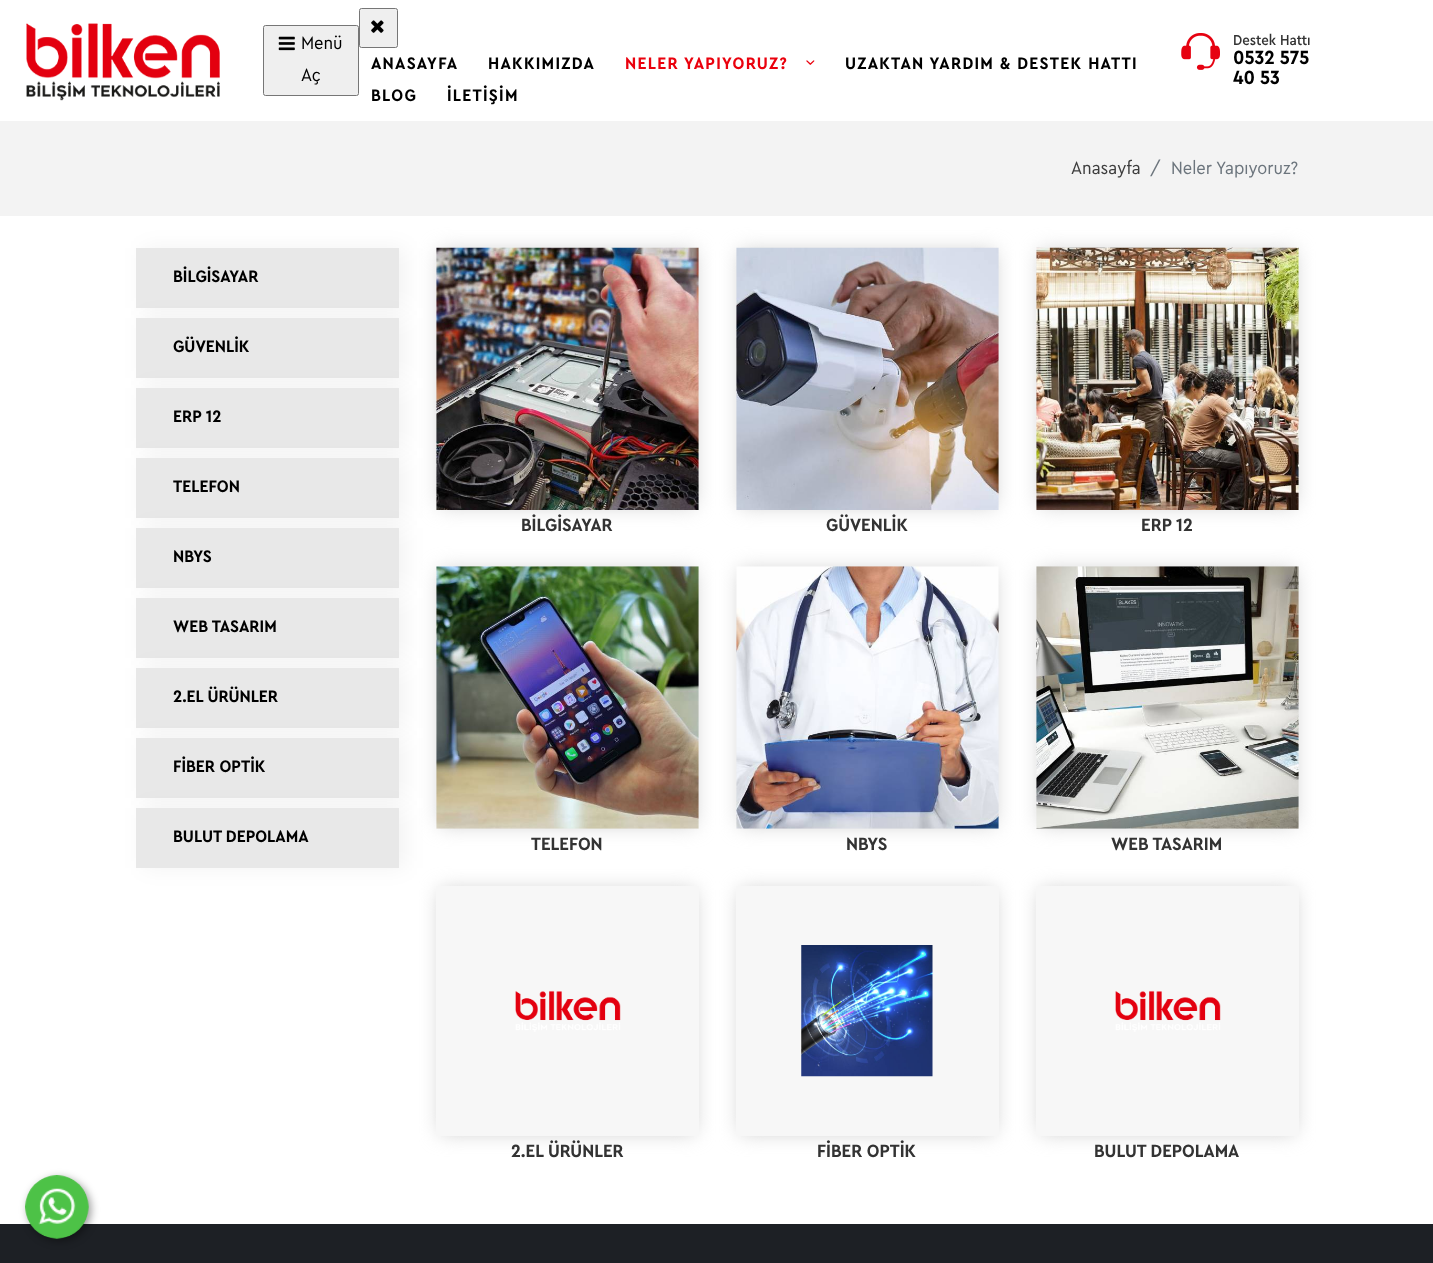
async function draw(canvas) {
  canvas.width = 1433;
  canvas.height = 1263;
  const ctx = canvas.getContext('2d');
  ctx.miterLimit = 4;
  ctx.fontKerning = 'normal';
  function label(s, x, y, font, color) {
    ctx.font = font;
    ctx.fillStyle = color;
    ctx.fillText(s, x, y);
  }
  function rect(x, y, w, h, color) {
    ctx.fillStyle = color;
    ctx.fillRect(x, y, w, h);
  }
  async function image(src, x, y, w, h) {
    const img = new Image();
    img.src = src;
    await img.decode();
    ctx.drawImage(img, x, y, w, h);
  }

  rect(0, 0, 1433, 1263, '#fff');
  await image('assets/img1.png', 26, 23, 194, 78);
  ctx.fillStyle = '#efefef';
  ctx.beginPath();
  ctx.roundRect(263.5, 25.5, 95, 70, 2);
  ctx.fill();
  ctx.strokeStyle = '#767676';
  ctx.stroke();
  await image('assets/img2.png', 278, 36, 17, 15);
  label('Menü', 301, 49, '18.75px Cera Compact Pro', '#000');
  label('Aç', 301, 81, '18.75px Cera Compact Pro', '#000');
  ctx.fillStyle = '#efefef';
  ctx.beginPath();
  ctx.roundRect(359.5, 8.5, 38, 39, 2);
  ctx.fill();
  ctx.stroke();
  await image('assets/img3.png', 371, 20, 13, 13);
  ctx.letterSpacing = '1.25px';
  label('ANASAYFA', 371, 69, 'bold 17.5px Cera Compact Pro', '#000');
  label('HAKKIMIZDA', 488, 69, 'bold 17.5px Cera Compact Pro', '#000');
  label('NELER YAPIYORUZ?', 625, 69, 'bold 17.5px Cera Compact Pro', '#ea010d');
  await image('assets/img4.png', 806, 60, 9, 5);
  label('UZAKTAN YARDIM & DESTEK HATTI', 845, 69, 'bold 17.5px Cera Compact Pro', '#000');
  label('BLOG', 371, 101, 'bold 17.5px Cera Compact Pro', '#000');
  label('İLETİŞİM', 447, 101, 'bold 17.5px Cera Compact Pro', '#000');
  await image('assets/img5.png', 1181, 33, 39, 37);
  ctx.letterSpacing = '0px';
  label('Destek Hattı', 1233, 45, '500 15px Cera Compact Pro', '#333');
  label('0532 575', 1233, 64, 'bold 20px Cera Compact Pro', '#000');
  label('40 53', 1233, 84, 'bold 20px Cera Compact Pro', '#000');
  rect(0, 121, 1433, 95, '#f3f3f3');
  label('Anasayfa', 1071, 174, '18.75px Cera Compact Pro', '#3e3e3e');
  label('/', 1150, 174, '18.75px Cera Compact Pro', '#6c757d');
  label('Neler Yapıyoruz?', 1171, 174, '18.75px Cera Compact Pro', '#6c757d');
  ctx.fillStyle = '#0000000d';
  ctx.filter = 'blur(10.5px)';
  ctx.beginPath();
  ctx.rect(143, 248, 262, 60);
  ctx.fill();
  ctx.filter = 'none';
  rect(136, 248, 263, 60, '#e8e8e8');
  label('BİLGİSAYAR', 173, 282, 'bold 17.5px Cera Compact Pro', '#000');
  ctx.fillStyle = '#0000000d';
  ctx.filter = 'blur(10.5px)';
  ctx.beginPath();
  ctx.rect(143, 318, 262, 60);
  ctx.fill();
  ctx.filter = 'none';
  rect(136, 318, 263, 60, '#e8e8e8');
  label('GÜVENLİK', 173, 352, 'bold 17.5px Cera Compact Pro', '#000');
  ctx.fillStyle = '#0000000d';
  ctx.filter = 'blur(10.5px)';
  ctx.beginPath();
  ctx.rect(143, 388, 262, 60);
  ctx.fill();
  ctx.filter = 'none';
  rect(136, 388, 263, 60, '#e8e8e8');
  label('ERP 12', 173, 422, 'bold 17.5px Cera Compact Pro', '#000');
  ctx.fillStyle = '#0000000d';
  ctx.filter = 'blur(10.5px)';
  ctx.beginPath();
  ctx.rect(143, 458, 262, 60);
  ctx.fill();
  ctx.filter = 'none';
  rect(136, 458, 263, 60, '#e8e8e8');
  label('TELEFON', 173, 492, 'bold 17.5px Cera Compact Pro', '#000');
  ctx.fillStyle = '#0000000d';
  ctx.filter = 'blur(10.5px)';
  ctx.beginPath();
  ctx.rect(143, 528, 262, 60);
  ctx.fill();
  ctx.filter = 'none';
  rect(136, 528, 263, 60, '#e8e8e8');
  label('NBYS', 173, 562, 'bold 17.5px Cera Compact Pro', '#000');
  ctx.fillStyle = '#0000000d';
  ctx.filter = 'blur(10.5px)';
  ctx.beginPath();
  ctx.rect(143, 598, 262, 60);
  ctx.fill();
  ctx.filter = 'none';
  rect(136, 598, 263, 60, '#e8e8e8');
  label('WEB TASARIM', 173, 632, 'bold 17.5px Cera Compact Pro', '#000');
  ctx.fillStyle = '#0000000d';
  ctx.filter = 'blur(10.5px)';
  ctx.beginPath();
  ctx.rect(143, 668, 262, 60);
  ctx.fill();
  ctx.filter = 'none';
  rect(136, 668, 263, 60, '#e8e8e8');
  label('2.EL ÜRÜNLER', 173, 702, 'bold 17.5px Cera Compact Pro', '#000');
  ctx.fillStyle = '#0000000d';
  ctx.filter = 'blur(10.5px)';
  ctx.beginPath();
  ctx.rect(143, 738, 262, 60);
  ctx.fill();
  ctx.filter = 'none';
  rect(136, 738, 263, 60, '#e8e8e8');
  label('FİBER OPTİK', 173, 772, 'bold 17.5px Cera Compact Pro', '#000');
  ctx.fillStyle = '#0000000d';
  ctx.filter = 'blur(10.5px)';
  ctx.beginPath();
  ctx.rect(143, 808, 262, 60);
  ctx.fill();
  ctx.filter = 'none';
  rect(136, 808, 263, 60, '#e8e8e8');
  label('BULUT DEPOLAMA', 173, 842, 'bold 17.5px Cera Compact Pro', '#000');
  ctx.fillStyle = '#ccc';
  ctx.filter = 'blur(10px)';
  ctx.beginPath();
  ctx.rect(440, 251, 255, 255);
  ctx.fill();
  ctx.filter = 'none';
  await image('assets/img6.png', 436, 247, 263, 263);
  label('BİLGİSAYAR', 521, 531, 'bold 18.75px Cera Compact Pro', '#333');
  ctx.fillStyle = '#ccc';
  ctx.filter = 'blur(10px)';
  ctx.beginPath();
  ctx.rect(740, 251, 255, 255);
  ctx.fill();
  ctx.filter = 'none';
  await image('assets/img7.png', 736, 247, 263, 263);
  label('GÜVENLİK', 826, 531, 'bold 18.75px Cera Compact Pro', '#333');
  ctx.fillStyle = '#ccc';
  ctx.filter = 'blur(10px)';
  ctx.beginPath();
  ctx.rect(1040, 251, 255, 255);
  ctx.fill();
  ctx.filter = 'none';
  await image('assets/img8.png', 1036, 247, 263, 263);
  label('ERP 12', 1141, 531, 'bold 18.75px Cera Compact Pro', '#333');
  ctx.fillStyle = '#ccc';
  ctx.filter = 'blur(10px)';
  ctx.beginPath();
  ctx.rect(440, 570, 255, 255);
  ctx.fill();
  ctx.filter = 'none';
  await image('assets/img9.png', 436, 566, 263, 263);
  label('TELEFON', 531, 850, 'bold 18.75px Cera Compact Pro', '#333');
  ctx.fillStyle = '#ccc';
  ctx.filter = 'blur(10px)';
  ctx.beginPath();
  ctx.rect(740, 570, 255, 255);
  ctx.fill();
  ctx.filter = 'none';
  await image('assets/img10.png', 736, 566, 263, 263);
  label('NBYS', 846, 850, 'bold 18.75px Cera Compact Pro', '#333');
  ctx.fillStyle = '#ccc';
  ctx.filter = 'blur(10px)';
  ctx.beginPath();
  ctx.rect(1040, 570, 255, 255);
  ctx.fill();
  ctx.filter = 'none';
  await image('assets/img11.png', 1036, 566, 263, 263);
  label('WEB TASARIM', 1111, 850, 'bold 18.75px Cera Compact Pro', '#333');
  ctx.fillStyle = '#ccc';
  ctx.filter = 'blur(10px)';
  ctx.beginPath();
  ctx.rect(440, 890, 255, 243);
  ctx.fill();
  ctx.filter = 'none';
  rect(436, 886, 263, 250, '#f7f7f7');
  await image('assets/img12.png', 515, 990, 106, 42);
  label('2.EL ÜRÜNLER', 511, 1157, 'bold 18.75px Cera Compact Pro', '#333');
  ctx.fillStyle = '#ccc';
  ctx.filter = 'blur(10px)';
  ctx.beginPath();
  ctx.rect(740, 890, 255, 243);
  ctx.fill();
  ctx.filter = 'none';
  rect(736, 886, 263, 250, '#f7f7f7');
  await image('assets/img13.png', 801, 945, 132, 132);
  label('FİBER OPTİK', 817, 1157, 'bold 18.75px Cera Compact Pro', '#333');
  ctx.fillStyle = '#ccc';
  ctx.filter = 'blur(10px)';
  ctx.beginPath();
  ctx.rect(1040, 890, 255, 243);
  ctx.fill();
  ctx.filter = 'none';
  rect(1036, 886, 263, 250, '#f7f7f7');
  await image('assets/img12.png', 1115, 990, 106, 42);
  label('BULUT DEPOLAMA', 1094, 1157, 'bold 18.75px Cera Compact Pro', '#333');
  rect(0, 1224, 1433, 39, '#1d2025');
  ctx.fillStyle = '#00000066';
  ctx.filter = 'blur(4px)';
  ctx.beginPath();
  ctx.roundRect(28, 1178, 63, 63, 31.5);
  ctx.fill();
  ctx.filter = 'none';
  await image('assets/img14.png', 25, 1175, 64, 64);
}

draw(document.querySelector('canvas'));
